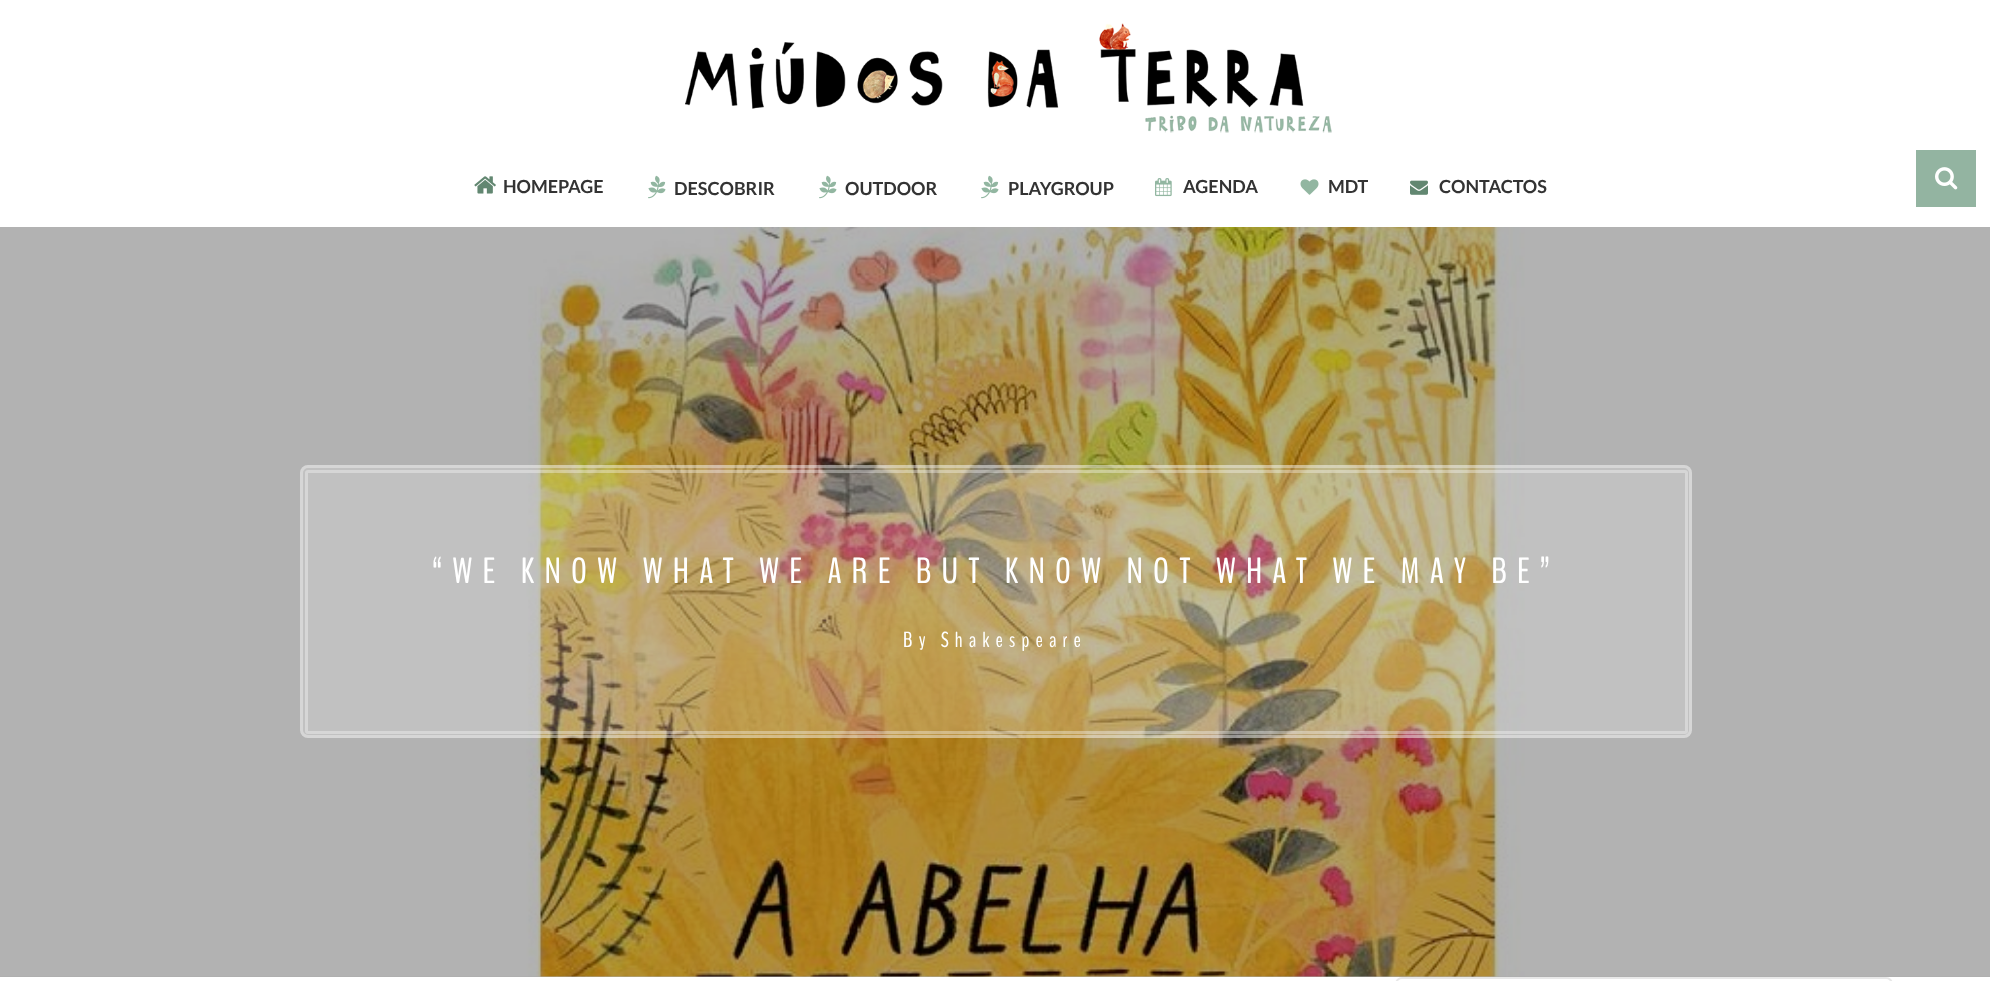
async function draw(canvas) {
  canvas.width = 1990;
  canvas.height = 981;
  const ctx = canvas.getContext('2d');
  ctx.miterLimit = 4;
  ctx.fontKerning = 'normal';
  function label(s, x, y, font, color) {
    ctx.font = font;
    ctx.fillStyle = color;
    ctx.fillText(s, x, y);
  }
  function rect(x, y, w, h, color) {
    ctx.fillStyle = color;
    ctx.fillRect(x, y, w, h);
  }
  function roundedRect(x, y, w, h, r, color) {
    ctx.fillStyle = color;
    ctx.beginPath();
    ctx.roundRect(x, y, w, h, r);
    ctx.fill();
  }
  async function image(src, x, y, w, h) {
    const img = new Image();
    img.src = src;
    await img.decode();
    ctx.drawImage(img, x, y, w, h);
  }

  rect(0, 0, 1990, 981, '#fff');
  await image('assets/img1.png', 685, 23, 647, 110);
  await image('assets/img2.png', 474, 176, 22, 18);
  label('HOMEPAGE', 503, 193, 'bold 18px Lato', '#333');
  await image('assets/img3.png', 648, 175, 18, 24);
  label('DESCOBRIR', 674, 195, 'bold 18px Lato', '#333');
  await image('assets/img3.png', 819, 175, 18, 24);
  label('OUTDOOR', 845, 195, 'bold 18px Lato', '#333');
  await image('assets/img3.png', 981, 175, 18, 24);
  label('PLAYGROUP', 1008, 195, 'bold 18px Lato', '#333');
  await image('assets/img4.png', 1155, 178, 17, 19);
  label('AGENDA', 1183, 193, 'bold 18px Lato', '#333');
  await image('assets/img5.png', 1300, 179, 19, 16);
  label('MDT', 1328, 193, 'bold 18px Lato', '#333');
  await image('assets/img6.png', 1410, 180, 18, 15);
  label('CONTACTOS', 1439, 193, 'bold 18px Lato', '#333');
  rect(1916, 150, 60, 57, '#93b4a1');
  await image('assets/img7.png', 1935, 167, 23, 23);
  rect(0, 976, 1990, 1, '#f7f7f7');
  await image('assets/img8.png', 0, 227, 1990, 750);
  rect(0, 227, 1990, 750, '#0000004d');
  roundedRect(300, 465, 1392, 273, 8, '#ffffff33');
  ctx.beginPath();
  ctx.roundRect(301.5, 466.5, 1389, 270, 6.5);
  ctx.strokeStyle = '#ffffff59';
  ctx.lineWidth = 3;
  ctx.stroke();
  ctx.beginPath();
  ctx.roundRect(306.5, 471.5, 1380, 261, 1.5);
  ctx.stroke();
  ctx.letterSpacing = '10.15px';
  label('“WE KNOW WHAT WE ARE BUT KNOW NOT WHAT WE MAY BE”', 432, 583, '36.2px BenchNine', '#fff');
  ctx.letterSpacing = '6.1px';
  label('By Shakespeare', 903, 647, '21.75px BenchNine', '#fff');
  ctx.beginPath();
  ctx.roundRect(1396, 978, 496, 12, 7);
  ctx.strokeStyle = '#e8e8e8';
  ctx.lineWidth = 2;
  ctx.stroke();
}

draw(document.querySelector('canvas'));
